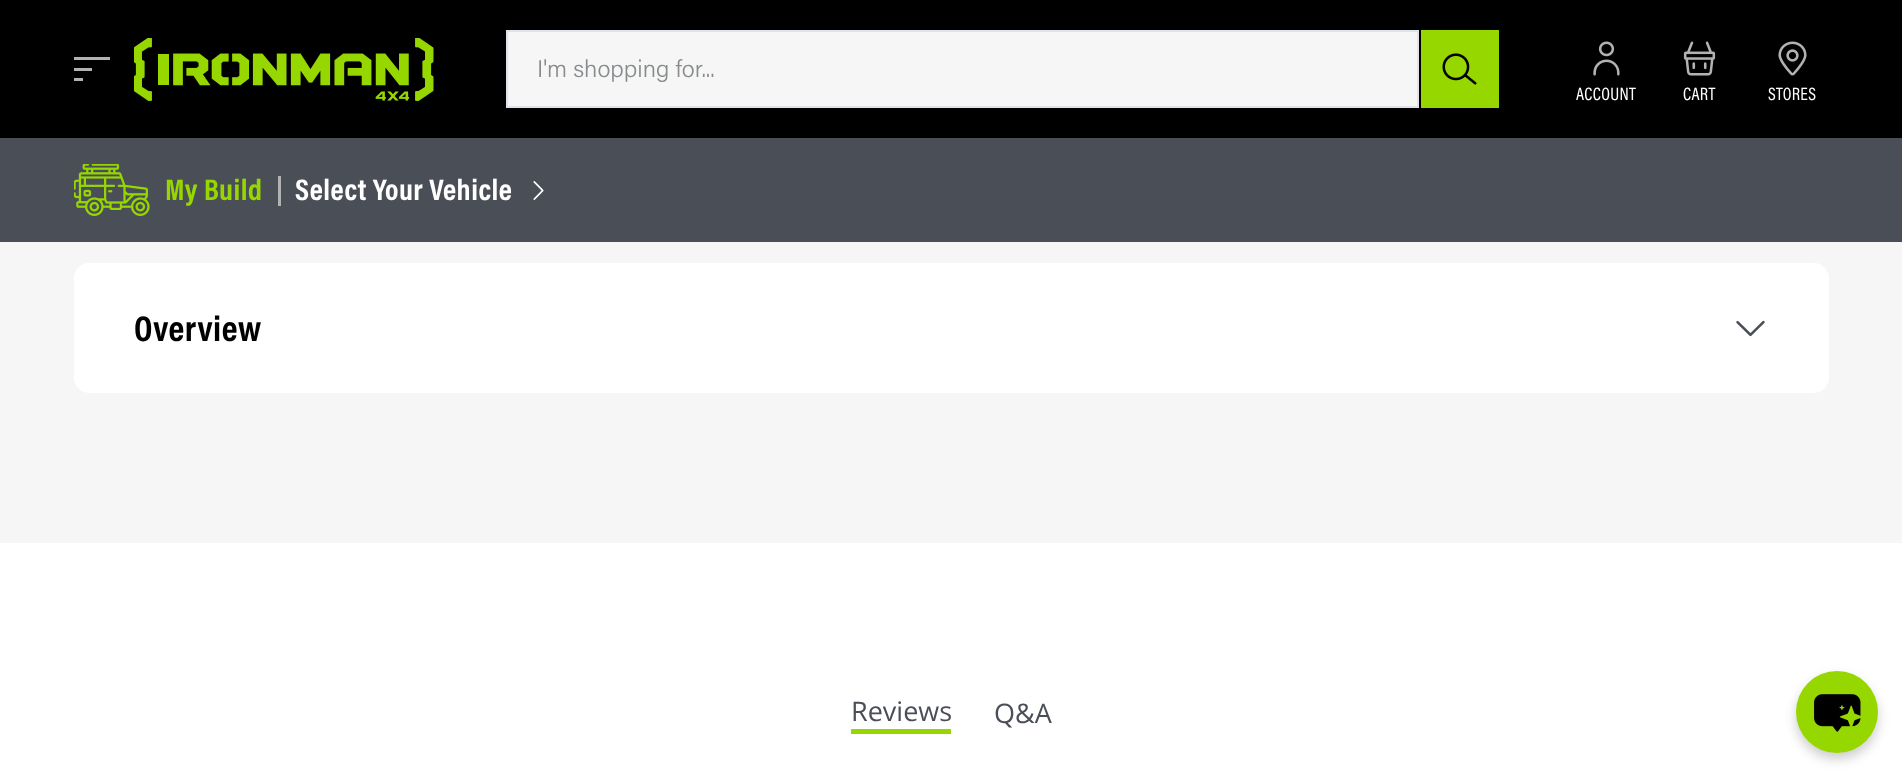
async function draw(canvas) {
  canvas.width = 1902;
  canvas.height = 776;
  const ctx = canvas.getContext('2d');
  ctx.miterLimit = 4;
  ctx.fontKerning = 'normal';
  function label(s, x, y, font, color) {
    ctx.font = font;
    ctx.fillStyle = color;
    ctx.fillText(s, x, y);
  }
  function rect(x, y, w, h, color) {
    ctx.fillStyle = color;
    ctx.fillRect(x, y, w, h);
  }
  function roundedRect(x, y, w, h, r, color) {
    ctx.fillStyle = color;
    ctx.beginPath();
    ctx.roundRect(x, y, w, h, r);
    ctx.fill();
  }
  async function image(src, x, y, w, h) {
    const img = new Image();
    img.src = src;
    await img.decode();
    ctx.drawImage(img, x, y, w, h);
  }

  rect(0, 0, 1902, 776, '#fff');
  rect(0, 0, 1902, 138, '#000');
  rect(0, 138, 1902, 104, '#4a4e57');
  rect(74, 57, 36, 3, '#b1b3b3');
  rect(74, 68, 18, 3, '#b1b3b3');
  rect(74, 78, 9, 3, '#b1b3b3');
  await image('assets/img1.png', 134, 38, 300, 63);
  ctx.fillStyle = '#f6f6f6';
  ctx.beginPath();
  ctx.rect(507, 31, 911, 76);
  ctx.fill();
  ctx.strokeStyle = '#dfe4ea';
  ctx.lineWidth = 2;
  ctx.stroke();
  label('I\'m shopping for...', 537, 77, '300 24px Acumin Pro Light', '#888b8d');
  rect(1421, 30, 78, 78, '#97d700');
  await image('assets/img2.png', 1442, 53, 35, 32);
  await image('assets/img3.png', 1593, 41, 27, 35);
  ctx.letterSpacing = '0.25px';
  label('ACCOUNT', 1576, 100, '18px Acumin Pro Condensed', '#fff');
  await image('assets/img4.png', 1683, 41, 33, 35);
  label('CART', 1683, 100, '18px Acumin Pro Condensed', '#fff');
  await image('assets/img5.png', 1778, 41, 29, 35);
  label('STORES', 1768, 100, '18px Acumin Pro Condensed', '#fff');
  await image('assets/img6.png', 74, 164, 76, 52);
  rect(278, 176, 3, 30, '#b1b3b3');
  ctx.letterSpacing = '0.5px';
  label('My Build', 165, 200, 'bold 30px Acumin Pro Condensed', '#97d700');
  label('Select Your Vehicle', 295, 200, 'bold 30px Acumin Pro Condensed', '#fff');
  await image('assets/img7.png', 533, 181, 11, 19);
  rect(0, 242, 1902, 301, '#f6f6f6');
  roundedRect(74, 263, 1755, 130, 15, '#fff');
  label('Overview', 134, 341, 'bold 36px Acumin Pro Condensed', '#000');
  await image('assets/img8.png', 1736, 320, 29, 17);
  rect(851, 729, 100, 5, '#97d700');
  ctx.letterSpacing = '0px';
  label('Reviews', 851, 721, '27px Open Sans', '#4a4e57');
  label('Q&A', 994, 723, '27px Open Sans', '#4a4e57');
  ctx.fillStyle = '#00000033';
  ctx.filter = 'blur(6px)';
  ctx.beginPath();
  ctx.roundRect(1796, 677, 82, 82, 41);
  ctx.fill();
  ctx.filter = 'none';
  ctx.fillStyle = '#97d700';
  ctx.beginPath();
  ctx.arc(1837, 712, 41, 0, 2 * Math.PI);
  ctx.fill();
  await image('assets/img9.png', 1814, 694, 47, 38);
}

draw(document.querySelector('canvas'));
